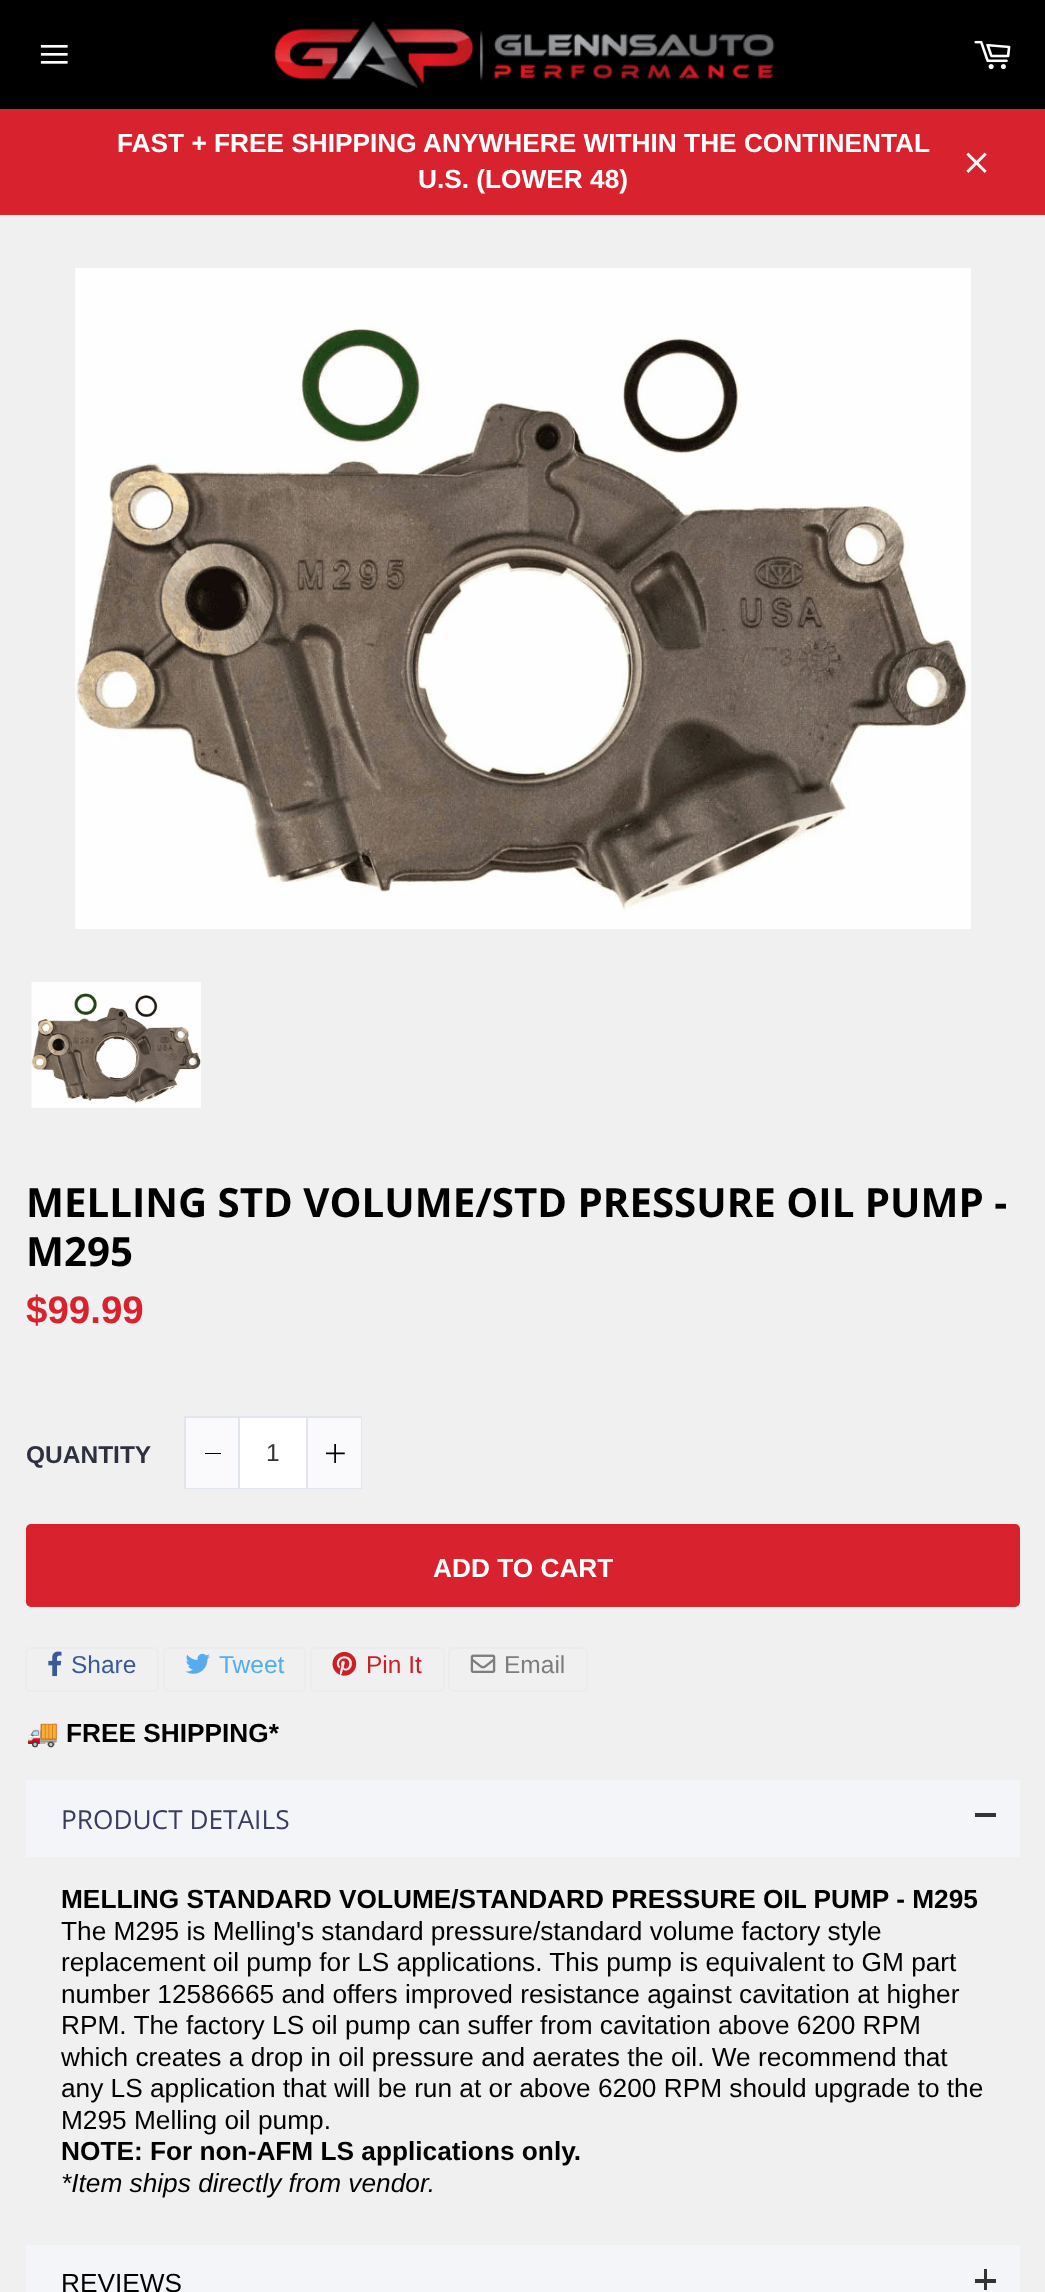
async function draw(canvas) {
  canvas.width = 1045;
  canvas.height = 2292;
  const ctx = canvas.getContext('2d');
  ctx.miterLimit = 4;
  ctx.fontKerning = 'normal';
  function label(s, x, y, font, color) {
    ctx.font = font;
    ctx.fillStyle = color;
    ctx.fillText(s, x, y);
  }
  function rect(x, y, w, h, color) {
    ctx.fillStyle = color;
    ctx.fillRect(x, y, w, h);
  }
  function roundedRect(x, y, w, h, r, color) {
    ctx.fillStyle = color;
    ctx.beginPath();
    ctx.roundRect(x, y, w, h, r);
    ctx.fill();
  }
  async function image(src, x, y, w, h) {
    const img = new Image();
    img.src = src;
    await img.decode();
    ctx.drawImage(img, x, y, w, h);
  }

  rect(0, 0, 1045, 2292, '#000');
  await image('assets/img1.png', 40, 44, 28, 20);
  await image('assets/img2.png', 273, 21, 502, 67);
  await image('assets/img3.png', 974, 40, 37, 30);
  rect(0, 109, 1045, 106, '#d8232f');
  label('FAST + FREE SHIPPING ANYWHERE WITHIN THE CONTINENTAL', 117, 152, 'bold 26.25px Liberation Sans', '#fff');
  label('U.S. (LOWER 48)', 418, 188, 'bold 26.25px Liberation Sans', '#fff');
  await image('assets/img4.png', 966, 152, 21, 21);
  rect(0, 215, 1045, 2077, '#f0f0f0');
  await image('assets/img5.png', 75, 268, 896, 661);
  await image('assets/img6.png', 31, 982, 170, 126);
  label('MELLING STD VOLUME/STD PRESSURE OIL PUMP -', 26, 1217, 'bold 40.25px Open Sans', '#000');
  label('M295', 26, 1266, 'bold 40.25px Open Sans', '#000');
  label('$99.99', 26, 1323, 'bold 38.5px Liberation Sans', '#d8232f');
  label('QUANTITY', 26, 1463, 'bold 24.5px Liberation Sans', '#2d313f');
  ctx.strokeStyle = '#e0e5ee';
  ctx.lineWidth = 2;
  ctx.strokeRect(185, 1417, 176, 71);
  rect(186, 1418, 52, 70, '#fafafc');
  rect(205, 1453, 16, 1, '#000');
  rect(240, 1418, 66, 70, '#fff');
  rect(306, 1418, 2, 70, '#e0e5ee');
  rect(238, 1418, 2, 70, '#e0e5ee');
  label('1', 266, 1461, '24.5px Liberation Sans', '#333');
  rect(308, 1418, 53, 70, '#fafafc');
  await image('assets/img7.png', 326, 1444, 19, 19);
  roundedRect(26, 1524, 994, 83, 5, '#d8232f');
  label('ADD TO CART', 433, 1577, 'bold 26.25px Liberation Sans', '#fff');
  ctx.beginPath();
  ctx.roundRect(26, 1648, 132, 43, 4);
  ctx.strokeStyle = '#ececec';
  ctx.stroke();
  await image('assets/img8.png', 48, 1651, 14, 26);
  label('Share', 71, 1673, '24.5px Liberation Sans', '#3b5998');
  ctx.beginPath();
  ctx.roundRect(164, 1648, 141, 43, 4);
  ctx.stroke();
  await image('assets/img9.png', 185, 1653, 25, 21);
  label('Tweet', 219, 1673, '24.5px Liberation Sans', '#55acee');
  ctx.beginPath();
  ctx.roundRect(311, 1648, 133, 43, 4);
  ctx.stroke();
  await image('assets/img10.png', 332, 1651, 25, 25);
  label('Pin It', 366, 1673, '24.5px Liberation Sans', '#cb2027');
  ctx.beginPath();
  ctx.roundRect(449, 1648, 138, 43, 4);
  ctx.stroke();
  await image('assets/img11.png', 470, 1654, 26, 19);
  label('Email', 504, 1673, '24.5px Liberation Sans', '#7d7d7d');
  label('🚚', 26, 1742, 'bold 26.25px Noto Color Emoji', '#000');
  label('FREE SHIPPING*', 66, 1742, 'bold 26.25px Liberation Sans', '#000');
  rect(26, 1780, 994, 77, '#f3f5f9');
  label('PRODUCT DETAILS', 61, 1829, '26.25px Open Sans', '#3b3b61');
  rect(975, 1813, 21, 4, '#333');
  label('MELLING STANDARD VOLUME/STANDARD PRESSURE OIL PUMP - M295', 61, 1908, 'bold 26.25px Liberation Sans', '#000');
  label('The M295 is Melling\'s standard pressure/standard volume factory style', 61, 1940, '26.25px Liberation Sans', '#000');
  label('replacement oil pump for LS applications. This pump is equivalent to GM part', 61, 1971, '26.25px Liberation Sans', '#000');
  label('number 12586665 and offers improved resistance against cavitation at higher', 61, 2003, '26.25px Liberation Sans', '#000');
  label('RPM. The factory LS oil pump can suffer from cavitation above 6200 RPM', 61, 2034, '26.25px Liberation Sans', '#000');
  label('which creates a drop in oil pressure and aerates the oil. We recommend that', 61, 2066, '26.25px Liberation Sans', '#000');
  label('any LS application that will be run at or above 6200 RPM should upgrade to the', 61, 2097, '26.25px Liberation Sans', '#000');
  label('M295 Melling oil pump.', 61, 2129, '26.25px Liberation Sans', '#000');
  label('NOTE: For non-AFM LS applications only.', 61, 2160, 'bold 26.25px Liberation Sans', '#000');
  label('*Item ships directly from vendor.', 61, 2192, 'italic 26.25px Liberation Sans', '#000');
  rect(26, 2245, 994, 47, '#f3f5f9');
  label('REVIEWS', 61, 2292, '26.25px Liberation Sans', '#000');
  rect(975, 2279, 21, 4, '#333');
  rect(984, 2269, 3, 21, '#333');
}

draw(document.querySelector('canvas'));
